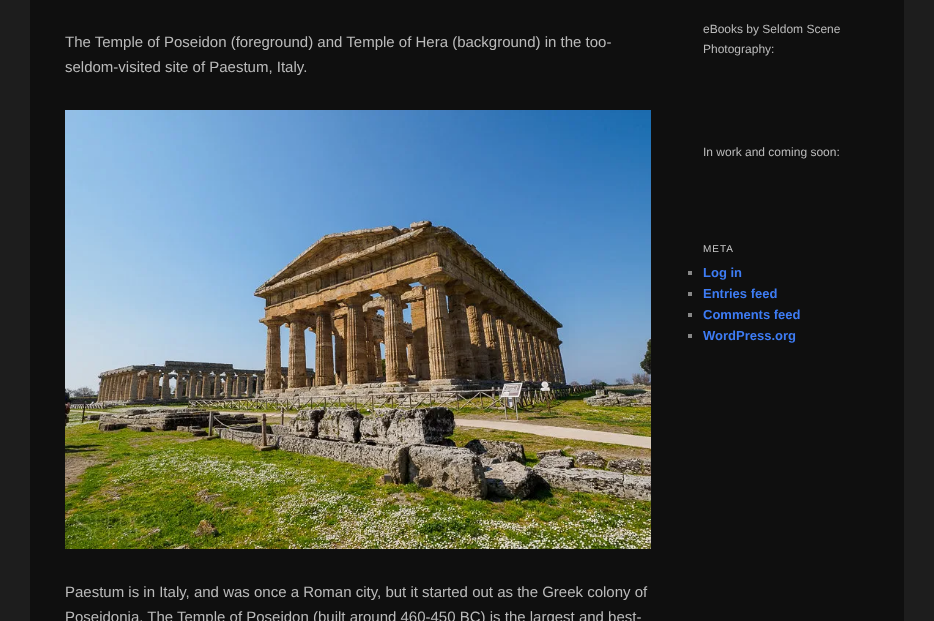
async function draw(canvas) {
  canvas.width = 934;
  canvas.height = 621;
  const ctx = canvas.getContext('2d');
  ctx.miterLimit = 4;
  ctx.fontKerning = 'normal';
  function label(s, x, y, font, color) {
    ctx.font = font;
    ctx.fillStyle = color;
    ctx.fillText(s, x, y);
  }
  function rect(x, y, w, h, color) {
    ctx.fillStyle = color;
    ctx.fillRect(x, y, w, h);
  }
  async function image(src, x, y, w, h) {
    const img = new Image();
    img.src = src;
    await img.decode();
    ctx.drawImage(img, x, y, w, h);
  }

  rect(0, 0, 934, 621, '#1d1d1d');
  rect(30, 0, 874, 621, '#0f0f0f');
  label('The Temple of Poseidon (foreground) and Temple of Hera (background) in the too-', 65, 47, '15px Liberation Sans', '#bbb');
  label('seldom-visited site of Paestum, Italy.', 65, 72, '15px Liberation Sans', '#bbb');
  await image('assets/img1.png', 65, 110, 586, 439);
  label('Paestum is in Italy, and was once a Roman city, but it started out as the Greek colony of', 65, 597, '15px Liberation Sans', '#bbb');
  label('Poseidonia. The Temple of Poseidon (built around 460-450 BC) is the largest and best-', 65, 622, '15px Liberation Sans', '#bbb');
  label('eBooks by Seldom Scene', 703, 33, '12px Liberation Sans', '#bbb');
  label('Photography:', 703, 53, '12px Liberation Sans', '#bbb');
  label('In work and coming soon:', 703, 156, '12px Liberation Sans', '#bbb');
  ctx.letterSpacing = '1px';
  label('META', 703, 252, '10px Liberation Sans', '#ccc');
  rect(688, 271, 4, 4, '#888');
  ctx.letterSpacing = '0px';
  label('Log in', 703, 277, 'bold 13px Liberation Sans', '#3e7cf4');
  rect(688, 292, 4, 4, '#888');
  label('Entries feed', 703, 298, 'bold 13px Liberation Sans', '#3e7cf4');
  rect(688, 313, 4, 4, '#888');
  label('Comments feed', 703, 319, 'bold 13px Liberation Sans', '#3e7cf4');
  rect(688, 334, 4, 4, '#888');
  label('WordPress.org', 703, 340, 'bold 13px Liberation Sans', '#3e7cf4');
}

draw(document.querySelector('canvas'));
